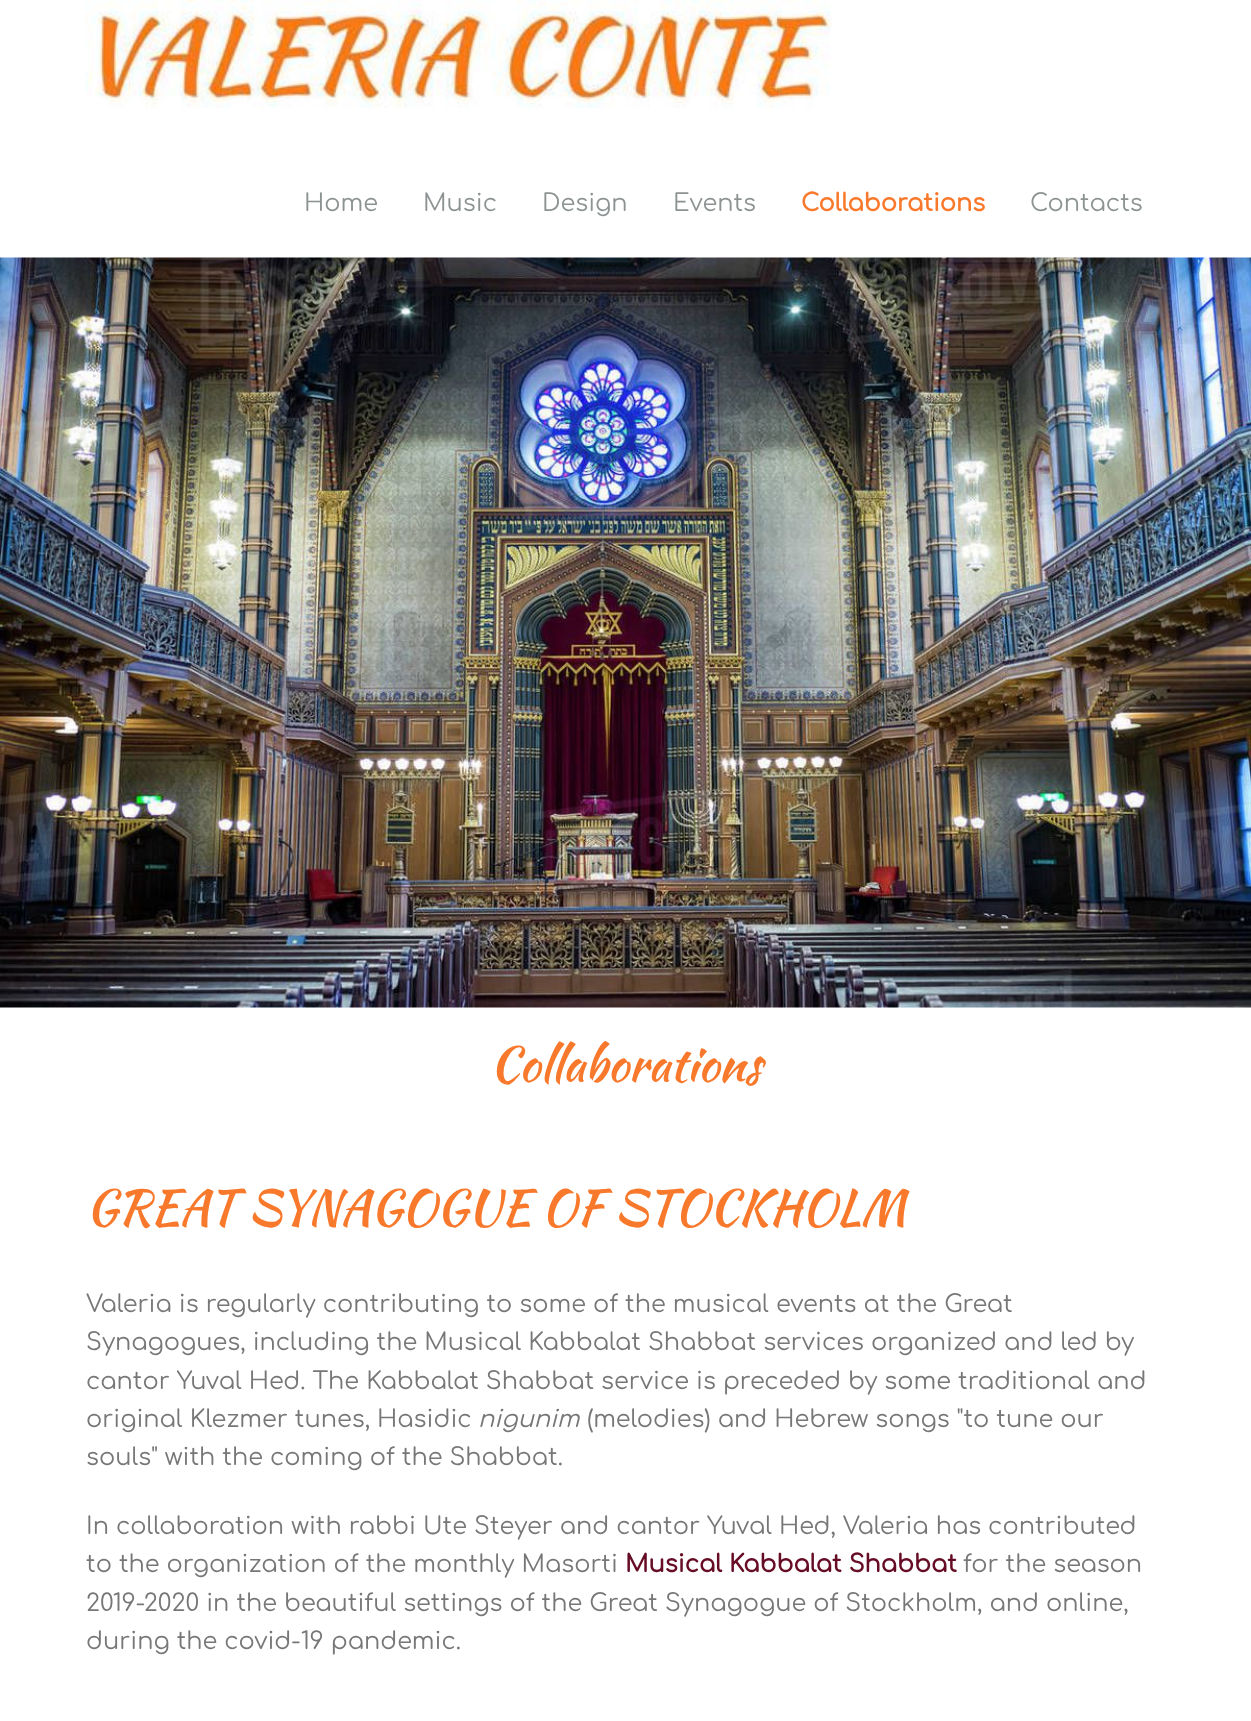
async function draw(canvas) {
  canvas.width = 1251;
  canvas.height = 1721;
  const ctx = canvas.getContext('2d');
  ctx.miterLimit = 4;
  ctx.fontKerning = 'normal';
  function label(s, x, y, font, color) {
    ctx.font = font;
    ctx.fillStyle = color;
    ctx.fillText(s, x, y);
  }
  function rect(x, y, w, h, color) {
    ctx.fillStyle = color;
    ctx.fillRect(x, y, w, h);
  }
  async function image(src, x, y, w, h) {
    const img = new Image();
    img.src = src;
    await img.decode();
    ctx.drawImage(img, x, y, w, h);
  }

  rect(0, 0, 1251, 1721, '#fff');
  await image('assets/img1.png', 85, 0, 747, 109);
  label('Home', 304, 211, '24px Comfortaa', '#8d9393');
  label('Music', 423, 211, '24px Comfortaa', '#8d9393');
  label('Design', 542, 211, '24px Comfortaa', '#8d9393');
  label('Events', 673, 211, '24px Comfortaa', '#8d9393');
  label('Collaborations', 801, 211, 'bold 24px Comfortaa', '#f9792c');
  label('Contacts', 1030, 211, '24px Comfortaa', '#8d9393');
  await image('assets/img2.png', 0, 257, 1251, 751);
  label('Collaborations', 490, 1081, '48px Kaushan Script', '#f9792c');
  label('GREAT SYNAGOGUE OF STOCKHOLM', 86, 1224, '48px Kaushan Script', '#f9792c');
  label('Valeria is regularly contributing to some of the musical events at the Great', 86, 1312, '24px Comfortaa', '#777');
  label('Synagogues, including the Musical Kabbalat Shabbat services organized and led by', 86, 1350, '24px Comfortaa', '#777');
  label('cantor Yuval Hed. The Kabbalat Shabbat service is preceded by some traditional and', 86, 1389, '24px Comfortaa', '#777');
  label('original Klezmer tunes, Hasidic', 86, 1427, '24px Comfortaa', '#777');
  label('nigunim', 478, 1427, 'italic 24px Comfortaa', '#777');
  label('(melodies) and Hebrew songs "to tune our', 587, 1427, '24px Comfortaa', '#777');
  label('souls" with the coming of the Shabbat.', 86, 1465, '24px Comfortaa', '#777');
  label('In collaboration with rabbi Ute Steyer and cantor Yuval Hed, Valeria has contributed', 86, 1534, '24px Comfortaa', '#777');
  label('to the organization of the monthly Masorti', 86, 1572, '24px Comfortaa', '#777');
  label('Musical Kabbalat Shabbat', 625, 1572, 'bold 24px Comfortaa', '#660c25');
  label('for the season', 963, 1572, '24px Comfortaa', '#777');
  label('2019-2020 in the beautiful settings of the Great Synagogue of Stockholm, and online,', 86, 1611, '24px Comfortaa', '#777');
  label('during the covid-19 pandemic.', 86, 1649, '24px Comfortaa', '#777');
}

draw(document.querySelector('canvas'));
